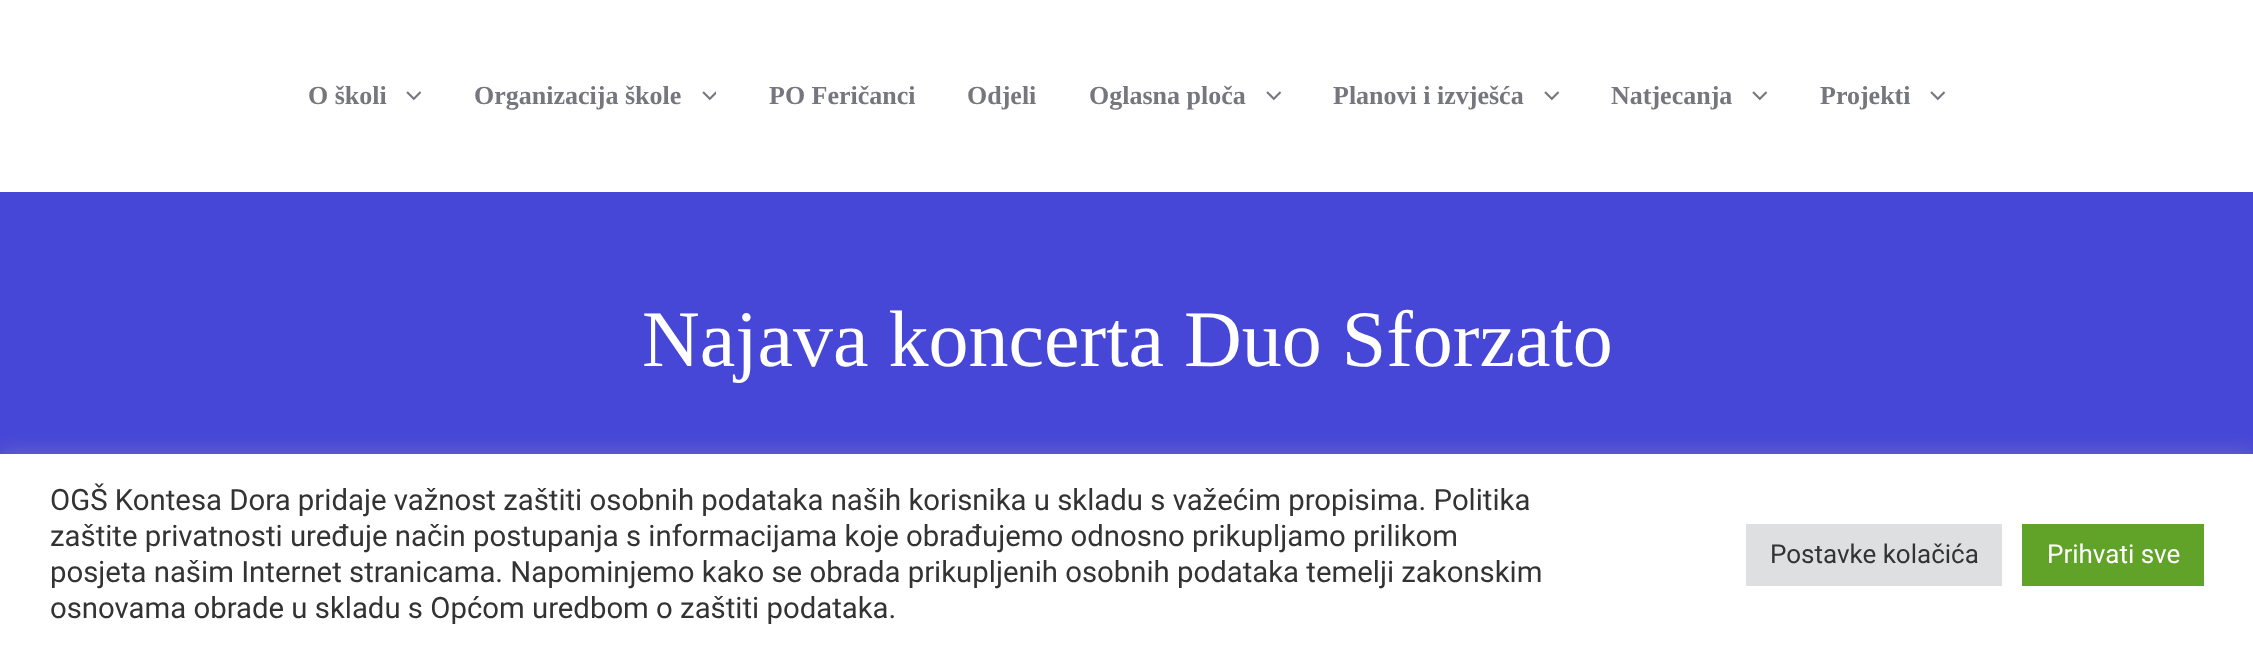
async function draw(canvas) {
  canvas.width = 2253;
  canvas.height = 653;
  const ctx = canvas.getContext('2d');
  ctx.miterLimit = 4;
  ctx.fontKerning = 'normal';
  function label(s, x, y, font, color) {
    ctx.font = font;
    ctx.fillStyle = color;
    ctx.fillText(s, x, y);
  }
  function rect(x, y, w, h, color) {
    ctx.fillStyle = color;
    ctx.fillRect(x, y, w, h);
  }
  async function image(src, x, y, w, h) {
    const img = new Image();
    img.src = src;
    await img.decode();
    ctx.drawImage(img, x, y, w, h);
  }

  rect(0, 0, 2253, 653, '#4747d7');
  rect(0, 0, 2253, 192, '#fff');
  label('O školi', 308, 104, 'bold 26px Liberation Serif', '#76767f');
  await image('assets/img1.png', 406, 91, 16, 10);
  label('Organizacija škole', 474, 104, 'bold 26px Liberation Serif', '#76767f');
  await image('assets/img2.png', 702, 91, 14, 10);
  label('PO Feričanci', 769, 104, 'bold 26px Liberation Serif', '#76767f');
  label('Odjeli', 967, 104, 'bold 26px Liberation Serif', '#76767f');
  label('Oglasna ploča', 1089, 104, 'bold 26px Liberation Serif', '#76767f');
  await image('assets/img1.png', 1266, 91, 16, 10);
  label('Planovi i izvješća', 1333, 104, 'bold 26px Liberation Serif', '#76767f');
  await image('assets/img1.png', 1544, 91, 16, 10);
  label('Natjecanja', 1611, 104, 'bold 26px Liberation Serif', '#76767f');
  await image('assets/img1.png', 1752, 91, 16, 10);
  label('Projekti', 1820, 104, 'bold 26px Liberation Serif', '#76767f');
  await image('assets/img1.png', 1930, 91, 16, 10);
  label('Najava koncerta Duo Sforzato', 642, 366, '80px Liberation Serif', '#fff');
  ctx.fillStyle = '#acabab4d';
  ctx.filter = 'blur(10px)';
  ctx.beginPath();
  ctx.rect(0, 452, 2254, 200);
  ctx.fill();
  ctx.filter = 'none';
  rect(0, 454, 2253, 199, '#fff');
  label('OGŠ Kontesa Dora pridaje važnost zaštiti osobnih podataka naših korisnika u skladu s važećim propisima. Politika', 50, 510, '29.33px Roboto', '#333');
  label('zaštite privatnosti uređuje način postupanja s informacijama koje obrađujemo odnosno prikupljamo prilikom', 50, 546, '29.33px Roboto', '#333');
  label('posjeta našim Internet stranicama. Napominjemo kako se obrada prikupljenih osobnih podataka temelji zakonskim', 50, 582, '29.33px Roboto', '#333');
  label('osnovama obrade u skladu s Općom uredbom o zaštiti podataka.', 50, 618, '29.33px Roboto', '#333');
  rect(1746, 524, 256, 62, '#dedfe0');
  label('Postavke kolačića', 1770, 563, '26px Roboto', '#333');
  rect(2022, 524, 182, 62, '#61a229');
  label('Prihvati sve', 2047, 563, '26px Roboto', '#fff');
}

draw(document.querySelector('canvas'));
